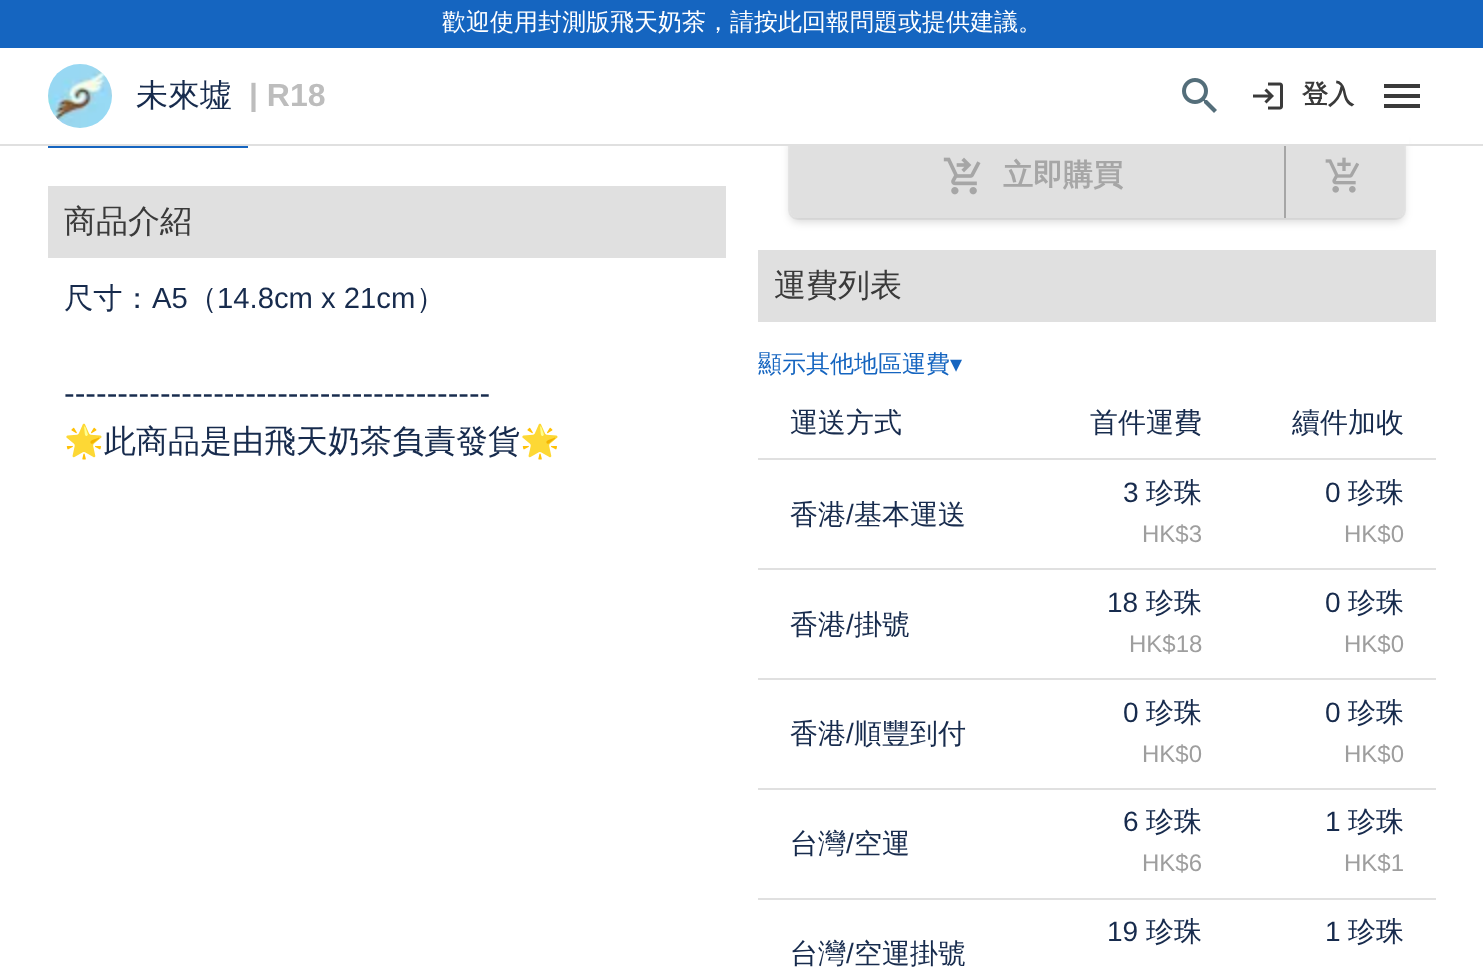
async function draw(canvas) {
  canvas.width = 1483;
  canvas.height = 975;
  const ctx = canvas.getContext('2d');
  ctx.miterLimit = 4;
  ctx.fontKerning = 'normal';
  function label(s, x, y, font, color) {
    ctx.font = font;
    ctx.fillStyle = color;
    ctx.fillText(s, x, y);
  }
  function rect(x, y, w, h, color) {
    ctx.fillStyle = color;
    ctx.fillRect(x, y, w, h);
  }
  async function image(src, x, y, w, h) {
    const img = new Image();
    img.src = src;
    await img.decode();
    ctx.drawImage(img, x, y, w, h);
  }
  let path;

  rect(0, 0, 1483, 975, '#fff');
  ctx.strokeStyle = '#1565c0';
  ctx.lineWidth = 6;
  ctx.strokeRect(51, -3, 194, 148);
  ctx.beginPath();
  ctx.roundRect(789, 133, 616, 86, 9);
  ctx.strokeStyle = '#f2f2f2';
  ctx.lineWidth = 2;
  ctx.stroke();
  ctx.save();
  path = new Path2D('M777 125H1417V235H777ZM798 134H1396C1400.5 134 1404 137.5 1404 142V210C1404 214.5 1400.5 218 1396 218H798C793.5 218 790 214.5 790 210V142C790 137.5 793.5 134 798 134Z');
  ctx.clip(path, 'evenodd');
  ctx.fillStyle = '#00000026';
  ctx.filter = 'blur(4px)';
  ctx.beginPath();
  ctx.roundRect(790, 138, 614, 84, 8);
  ctx.fill();
  ctx.filter = 'none';
  ctx.restore();
  ctx.fillStyle = '#0000001f';
  ctx.beginPath();
  ctx.roundRect(790, 134, 496, 84, [8, 0, 0, 8]);
  ctx.fill();
  ctx.beginPath();
  ctx.roundRect(1286, 134, 118, 84, [0, 8, 8, 0]);
  ctx.fill();
  rect(48, 48, 1361, 96, '#fff');
  rect(0, 0, 1483, 48, '#1565c0');
  label('歡迎使用封測版飛天奶茶，請按此回報問題或提供建議。', 442, 30, '500 24px WenQuanYi Zen Hei', '#fff');
  await image('assets/img1.png', 48, 64, 64, 64);
  ctx.save();
  ctx.beginPath();
  ctx.rect(136, 80, 96, 32);
  ctx.clip();
  label('未來墟', 136, 106, '500 32px WenQuanYi Zen Hei', '#172b4d');
  ctx.restore();
  ctx.save();
  ctx.beginPath();
  ctx.rect(240, 80, 86, 32);
  ctx.clip();
  label('| R18', 249, 106, 'bold 32px Liberation Sans', '#bdbdbd');
  ctx.restore();
  await image('assets/img2.png', 1182, 78, 35, 35);
  await image('assets/img3.png', 1253, 82, 30, 28);
  label('登入', 1302, 103, 'bold 26px WenQuanYi Zen Hei', '#3a3a3a');
  path = new Path2D('M1384 108H1420V104H1384ZM1384 98H1420V94H1384ZM1384 84V88H1420V84Z');
  ctx.fill(path);
  rect(0, 144, 1483, 2, '#e0e0e0');
  rect(48, 186, 678, 72, '#e0e0e0');
  label('商品介紹', 64, 232, '500 32px WenQuanYi Zen Hei', '#3a3a3a');
  label('尺寸：', 64, 308, '500 29.25px WenQuanYi Zen Hei', '#172b4d');
  label('A5', 152, 308, '29.25px Liberation Sans', '#172b4d');
  label('（', 188, 308, '500 29.25px WenQuanYi Zen Hei', '#172b4d');
  label('14.8cm x 21cm', 217, 308, '29.25px Liberation Sans', '#172b4d');
  label('）', 416, 308, '500 29.25px WenQuanYi Zen Hei', '#172b4d');
  label('----------------------------------------', 64, 404, '32px Liberation Sans', '#172b4d');
  label('🌟', 64, 452, '32px Noto Color Emoji', '#172b4d');
  label('此商品是由飛天奶茶負責發貨', 104, 452, '500 32px WenQuanYi Zen Hei', '#172b4d');
  label('🌟', 520, 452, '32px Noto Color Emoji', '#172b4d');
  rect(1284, 146, 2, 72, '#a6a6a6');
  await image('assets/img4.png', 943, 157, 38, 38);
  label('立即購買', 1003, 185, 'bold 30px WenQuanYi Zen Hei', '#a6a6a6');
  await image('assets/img5.png', 1325, 157, 34, 36);
  rect(758, 250, 678, 72, '#e0e0e0');
  label('運費列表', 774, 296, '500 32px WenQuanYi Zen Hei', '#3a3a3a');
  label('顯示其他地區運費', 758, 372, '500 24px WenQuanYi Zen Hei', '#1565c0');
  label('▾', 950, 372, '24px DejaVu Sans', '#1565c0');
  label('運送方式', 790, 432, '500 28px WenQuanYi Zen Hei', '#172b4d');
  label('首件運費', 1090, 432, '500 28px WenQuanYi Zen Hei', '#172b4d');
  rect(758, 458, 678, 2, '#e0e0e0');
  label('續件加收', 1292, 432, '500 28px WenQuanYi Zen Hei', '#172b4d');
  label('香港', 790, 524, '500 28px WenQuanYi Zen Hei', '#172b4d');
  label('/', 846, 524, '28px Liberation Sans', '#172b4d');
  label('基本運送', 854, 524, '500 28px WenQuanYi Zen Hei', '#172b4d');
  label('3', 1123, 502, '28px Liberation Sans', '#172b4d');
  label('珍珠', 1146, 502, '500 28px WenQuanYi Zen Hei', '#172b4d');
  label('HK$3', 1142, 542, '24px Liberation Sans', '#9e9e9e');
  rect(758, 568, 678, 2, '#e0e0e0');
  label('0', 1325, 502, '28px Liberation Sans', '#172b4d');
  label('珍珠', 1348, 502, '500 28px WenQuanYi Zen Hei', '#172b4d');
  label('HK$0', 1344, 542, '24px Liberation Sans', '#9e9e9e');
  label('香港', 790, 634, '500 28px WenQuanYi Zen Hei', '#172b4d');
  label('/', 846, 634, '28px Liberation Sans', '#172b4d');
  label('掛號', 854, 634, '500 28px WenQuanYi Zen Hei', '#172b4d');
  label('18', 1107, 612, '28px Liberation Sans', '#172b4d');
  label('珍珠', 1146, 612, '500 28px WenQuanYi Zen Hei', '#172b4d');
  label('HK$18', 1129, 652, '24px Liberation Sans', '#9e9e9e');
  rect(758, 678, 678, 2, '#e0e0e0');
  label('0', 1325, 612, '28px Liberation Sans', '#172b4d');
  label('珍珠', 1348, 612, '500 28px WenQuanYi Zen Hei', '#172b4d');
  label('HK$0', 1344, 652, '24px Liberation Sans', '#9e9e9e');
  label('香港', 790, 743, '500 28px WenQuanYi Zen Hei', '#172b4d');
  label('/', 846, 743, '28px Liberation Sans', '#172b4d');
  label('順豐到付', 854, 743, '500 28px WenQuanYi Zen Hei', '#172b4d');
  label('0', 1123, 722, '28px Liberation Sans', '#172b4d');
  label('珍珠', 1146, 722, '500 28px WenQuanYi Zen Hei', '#172b4d');
  label('HK$0', 1142, 762, '24px Liberation Sans', '#9e9e9e');
  rect(758, 788, 678, 2, '#e0e0e0');
  label('0', 1325, 722, '28px Liberation Sans', '#172b4d');
  label('珍珠', 1348, 722, '500 28px WenQuanYi Zen Hei', '#172b4d');
  label('HK$0', 1344, 762, '24px Liberation Sans', '#9e9e9e');
  label('台灣', 790, 853, '500 28px WenQuanYi Zen Hei', '#172b4d');
  label('/', 846, 853, '28px Liberation Sans', '#172b4d');
  label('空運', 854, 853, '500 28px WenQuanYi Zen Hei', '#172b4d');
  label('6', 1123, 831, '28px Liberation Sans', '#172b4d');
  label('珍珠', 1146, 831, '500 28px WenQuanYi Zen Hei', '#172b4d');
  label('HK$6', 1142, 871, '24px Liberation Sans', '#9e9e9e');
  rect(758, 898, 678, 2, '#e0e0e0');
  label('1', 1325, 831, '28px Liberation Sans', '#172b4d');
  label('珍珠', 1348, 831, '500 28px WenQuanYi Zen Hei', '#172b4d');
  label('HK$1', 1344, 871, '24px Liberation Sans', '#9e9e9e');
  label('19', 1107, 941, '28px Liberation Sans', '#172b4d');
  label('珍珠', 1146, 941, '500 28px WenQuanYi Zen Hei', '#172b4d');
  label('1', 1325, 941, '28px Liberation Sans', '#172b4d');
  label('珍珠', 1348, 941, '500 28px WenQuanYi Zen Hei', '#172b4d');
  label('台灣', 790, 963, '500 28px WenQuanYi Zen Hei', '#172b4d');
  label('/', 846, 963, '28px Liberation Sans', '#172b4d');
  label('空運掛號', 854, 963, '500 28px WenQuanYi Zen Hei', '#172b4d');
}

draw(document.querySelector('canvas'));
